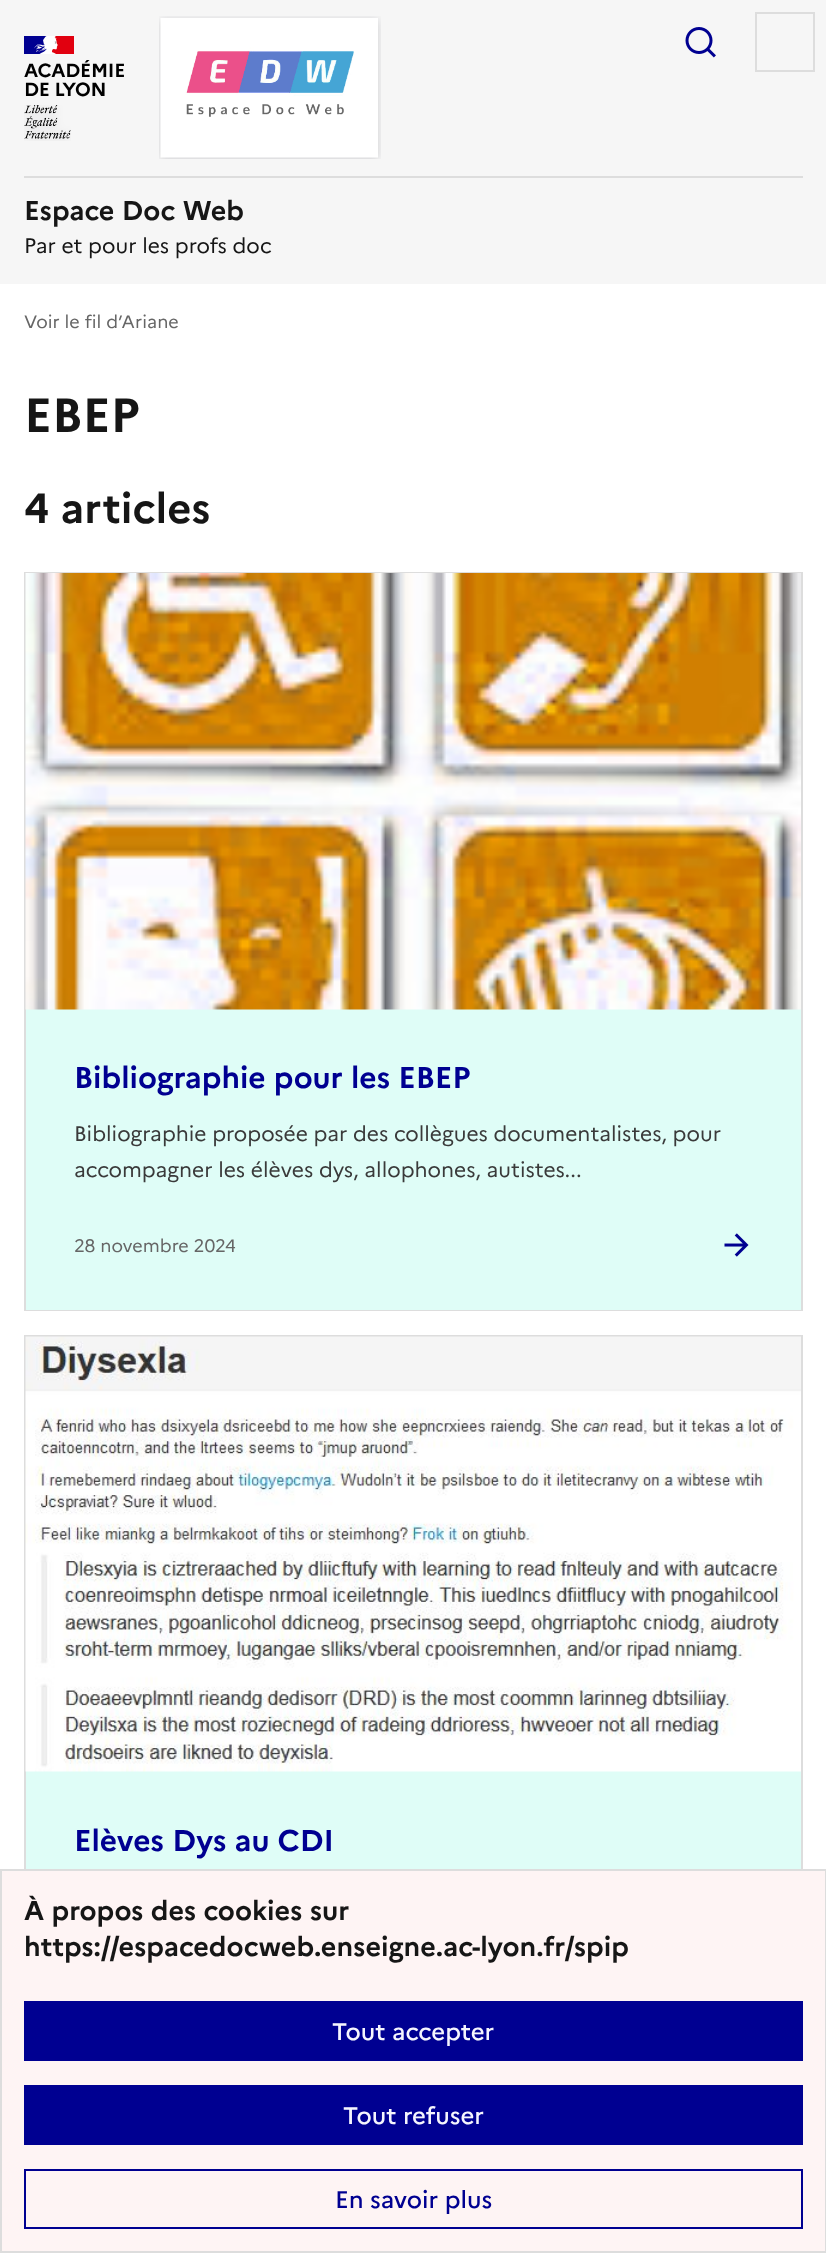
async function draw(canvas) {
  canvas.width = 826;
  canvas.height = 2253;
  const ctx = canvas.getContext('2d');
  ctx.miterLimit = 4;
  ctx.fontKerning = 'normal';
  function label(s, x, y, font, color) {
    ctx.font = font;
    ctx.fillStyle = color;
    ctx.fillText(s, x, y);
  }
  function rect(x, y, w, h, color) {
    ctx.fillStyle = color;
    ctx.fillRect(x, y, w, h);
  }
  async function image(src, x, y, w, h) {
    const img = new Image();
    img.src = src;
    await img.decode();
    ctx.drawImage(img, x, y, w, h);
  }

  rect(0, 0, 826, 2253, '#fff');
  rect(0, 0, 826, 284, '#f6f6f6');
  rect(24, 36, 23, 18, '#000091');
  rect(51, 36, 23, 18, '#e1000f');
  await image('assets/img1.png', 34, 36, 24, 18);
  ctx.letterSpacing = '-0.25px';
  label('ACADÉMIE', 24, 77, 'bold 19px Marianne', '#000');
  label('DE LYON', 24, 96, 'bold 19px Marianne', '#000');
  await image('assets/img2.png', 24, 105, 47, 36);
  await image('assets/img3.png', 159, 16, 222, 143);
  await image('assets/img4.png', 685, 27, 31, 31);
  ctx.strokeStyle = '#ddd';
  ctx.lineWidth = 2;
  ctx.strokeRect(756, 13, 58, 58);
  rect(24, 176, 779, 2, '#ddd');
  ctx.letterSpacing = '0px';
  label('Espace Doc Web', 24, 220, 'bold 27px Marianne', '#161616');
  label('Par et pour les profs doc', 24, 253, '21px Marianne', '#161616');
  label('Voir le fil d’Ariane', 24, 328, '18px Marianne', '#666');
  label('EBEP', 24, 432, 'bold 48px Marianne', '#161616');
  label('4 articles', 24, 523, 'bold 42px Marianne', '#161616');
  rect(26, 1009, 775, 301, '#dffdf7');
  rect(24, 572, 779, 1, '#ddd');
  rect(801, 572, 2, 739, '#ddd');
  rect(24, 572, 2, 739, '#ddd');
  rect(24, 1310, 779, 1, '#ddd');
  await image('assets/img5.png', 25, 573, 776, 437);
  label('Bibliographie pour les EBEP', 74, 1088, 'bold 30px Marianne', '#000091');
  await image('assets/img6.png', 724, 1233, 25, 24);
  label('Bibliographie proposée par des collègues documentalistes, pour', 74, 1141, '21px Marianne', '#3a3a3a');
  label('accompagner les élèves dys, allophones, autistes...', 74, 1177, '21px Marianne', '#3a3a3a');
  label('28 novembre 2024', 74, 1252, '18px Marianne', '#666');
  rect(26, 1771, 775, 98, '#dffdf7');
  rect(24, 1335, 779, 2, '#ddd');
  rect(801, 1335, 2, 534, '#ddd');
  rect(24, 1335, 2, 534, '#ddd');
  await image('assets/img7.png', 25, 1336, 776, 436);
  label('Elèves Dys au CDI', 74, 1851, 'bold 30px Marianne', '#000091');
  ctx.fillStyle = '#fef4f4';
  ctx.beginPath();
  ctx.rect(1, 1870, 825, 382);
  ctx.fill();
  ctx.stroke();
  label('À propos des cookies sur', 24, 1920, 'bold 27px Marianne', '#161616');
  label('https://espacedocweb.enseigne.ac-lyon.fr/spip', 24, 1956, 'bold 27px Marianne', '#161616');
  rect(24, 2001, 779, 60, '#000091');
  label('Tout accepter', 332, 2040, '500 24px Marianne', '#f5f5fe');
  rect(24, 2085, 779, 60, '#000091');
  label('Tout refuser', 343, 2124, '500 24px Marianne', '#f5f5fe');
  ctx.strokeStyle = '#000091';
  ctx.strokeRect(25, 2170, 777, 58);
  label('En savoir plus', 335, 2208, '500 24px Marianne', '#000091');
}

draw(document.querySelector('canvas'));
